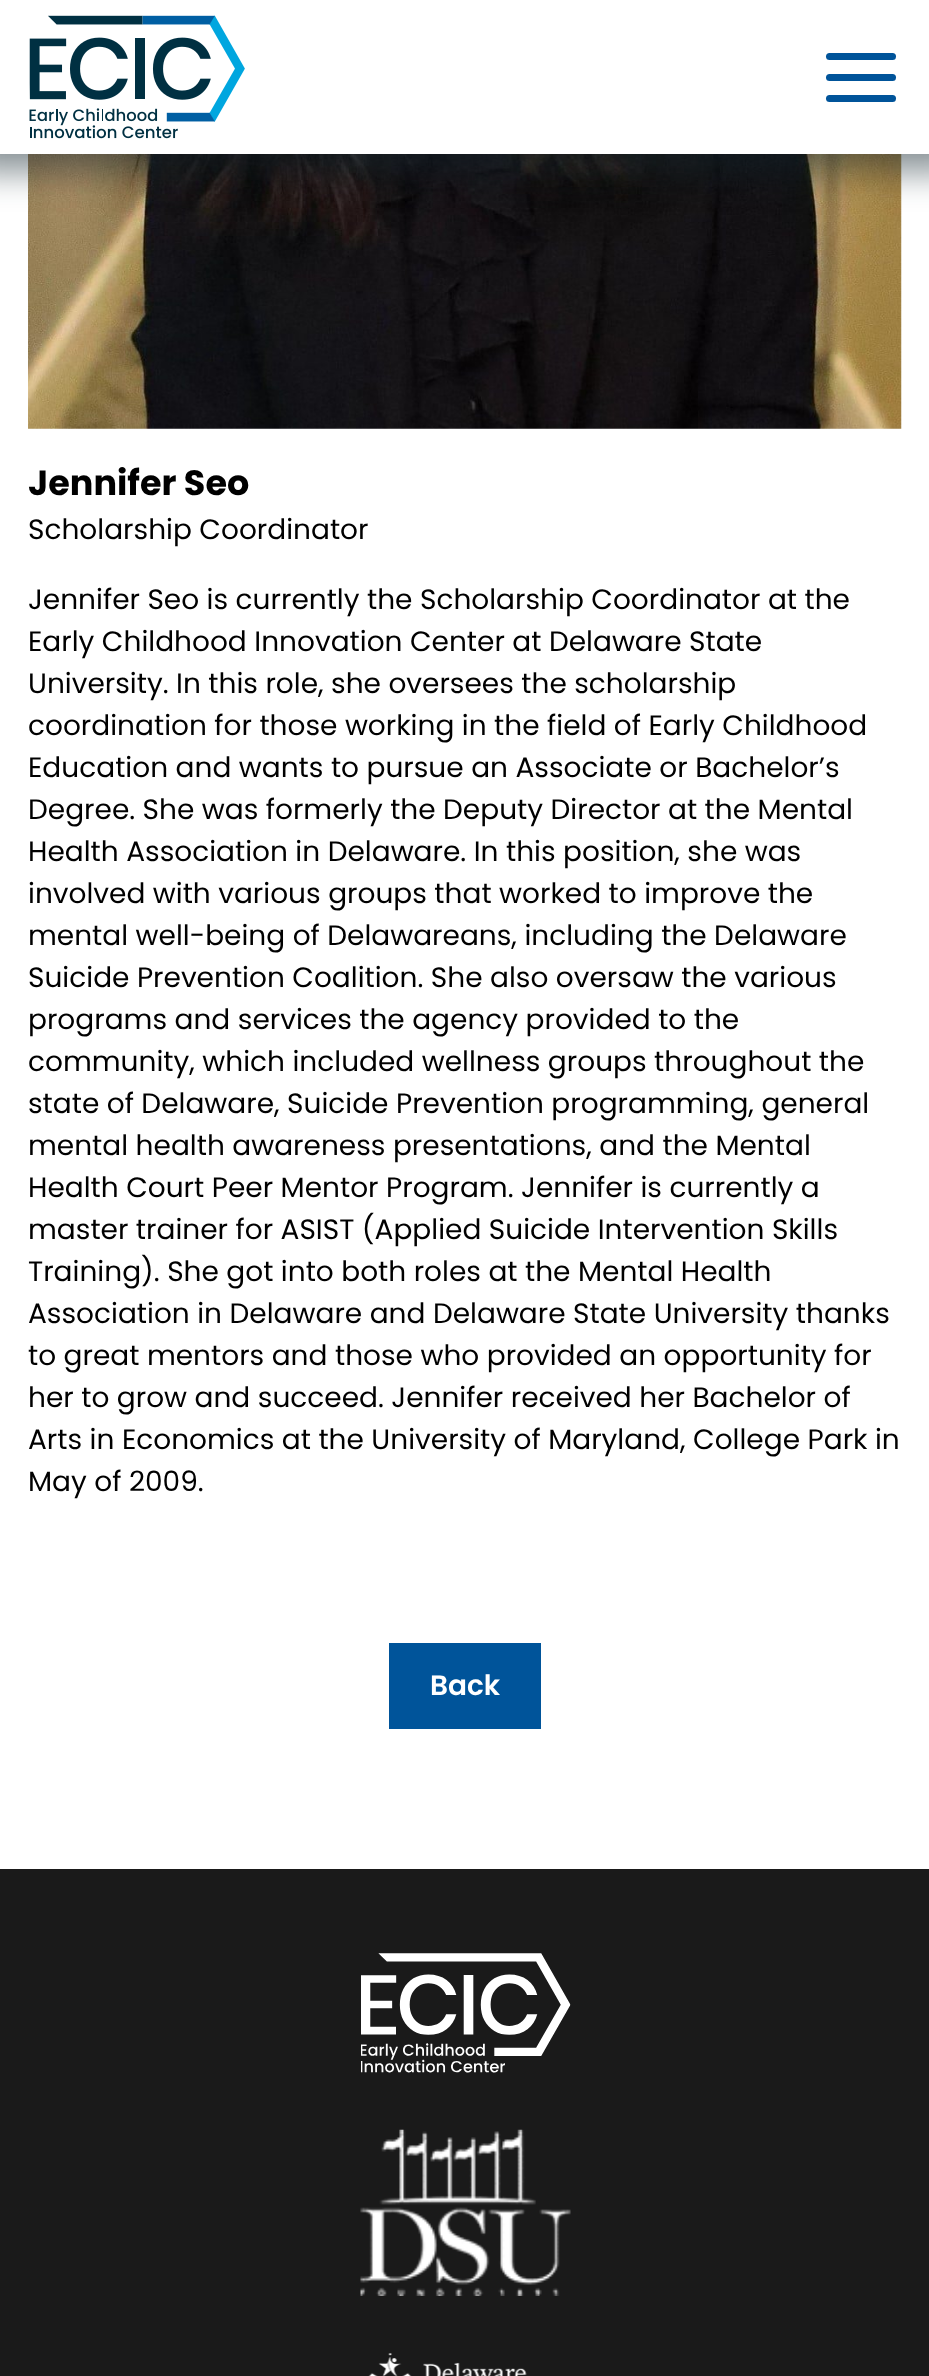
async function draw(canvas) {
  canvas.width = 929;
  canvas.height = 2376;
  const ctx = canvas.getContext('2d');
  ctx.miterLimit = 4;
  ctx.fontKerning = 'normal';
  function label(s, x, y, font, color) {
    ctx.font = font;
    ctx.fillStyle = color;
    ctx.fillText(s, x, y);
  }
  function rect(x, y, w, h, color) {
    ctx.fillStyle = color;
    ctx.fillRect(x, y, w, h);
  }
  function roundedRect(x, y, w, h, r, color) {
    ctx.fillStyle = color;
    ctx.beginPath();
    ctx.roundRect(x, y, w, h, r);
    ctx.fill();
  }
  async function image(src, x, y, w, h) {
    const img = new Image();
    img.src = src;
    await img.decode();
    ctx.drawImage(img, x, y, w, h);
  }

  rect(0, 0, 929, 2376, '#fff');
  await image('assets/img2.png', 28, 154, 874, 275);
  ctx.fillStyle = '#0f242c80';
  ctx.filter = 'blur(17.5px)';
  ctx.beginPath();
  ctx.rect(-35, -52, 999, 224);
  ctx.fill();
  ctx.filter = 'none';
  rect(0, 0, 929, 154, '#fff');
  await image('assets/img1.png', 29, 15, 216, 124);
  roundedRect(826, 74, 70, 7, 3.5, '#00549a');
  roundedRect(826, 53, 70, 7, 3.5, '#00549a');
  roundedRect(826, 95, 70, 7, 3.5, '#00549a');
  label('Jennifer Seo', 28, 495, 'bold 35px Poppins', '#000');
  label('Scholarship Coordinator', 28, 539, '28px Poppins', '#000');
  label('Jennifer Seo is currently the Scholarship Coordinator at the', 28, 609, '28px Poppins', '#000');
  label('Early Childhood Innovation Center at Delaware State', 28, 651, '28px Poppins', '#000');
  label('University. In this role, she oversees the scholarship', 28, 693, '28px Poppins', '#000');
  label('coordination for those working in the field of Early Childhood', 28, 735, '28px Poppins', '#000');
  label('Education and wants to pursue an Associate or Bachelor’s', 28, 777, '28px Poppins', '#000');
  label('Degree. She was formerly the Deputy Director at the Mental', 28, 819, '28px Poppins', '#000');
  label('Health Association in Delaware. In this position, she was', 28, 861, '28px Poppins', '#000');
  label('involved with various groups that worked to improve the', 28, 903, '28px Poppins', '#000');
  label('mental well-being of Delawareans, including the Delaware', 28, 945, '28px Poppins', '#000');
  label('Suicide Prevention Coalition. She also oversaw the various', 28, 987, '28px Poppins', '#000');
  label('programs and services the agency provided to the', 28, 1029, '28px Poppins', '#000');
  label('community, which included wellness groups throughout the', 28, 1071, '28px Poppins', '#000');
  label('state of Delaware, Suicide Prevention programming, general', 28, 1113, '28px Poppins', '#000');
  label('mental health awareness presentations, and the Mental', 28, 1155, '28px Poppins', '#000');
  label('Health Court Peer Mentor Program. Jennifer is currently a', 28, 1197, '28px Poppins', '#000');
  label('master trainer for ASIST (Applied Suicide Intervention Skills', 28, 1239, '28px Poppins', '#000');
  label('Training). She got into both roles at the Mental Health', 28, 1281, '28px Poppins', '#000');
  label('Association in Delaware and Delaware State University thanks', 28, 1323, '28px Poppins', '#000');
  label('to great mentors and those who provided an opportunity for', 28, 1365, '28px Poppins', '#000');
  label('her to grow and succeed. Jennifer received her Bachelor of', 28, 1407, '28px Poppins', '#000');
  label('Arts in Economics at the University of Maryland, College Park in', 28, 1449, '28px Poppins', '#000');
  label('May of 2009.', 28, 1491, '28px Poppins', '#000');
  rect(389, 1643, 152, 86, '#00549a');
  label('Back', 430, 1695, '600 28px Poppins', '#fff');
  rect(0, 1869, 929, 507, '#1a1a1a');
  await image('assets/img3.png', 361, 1953, 210, 120);
  await image('assets/img4.png', 360, 2129, 211, 167);
  await image('assets/img5.png', 368, 2353, 159, 23);
}

draw(document.querySelector('canvas'));
